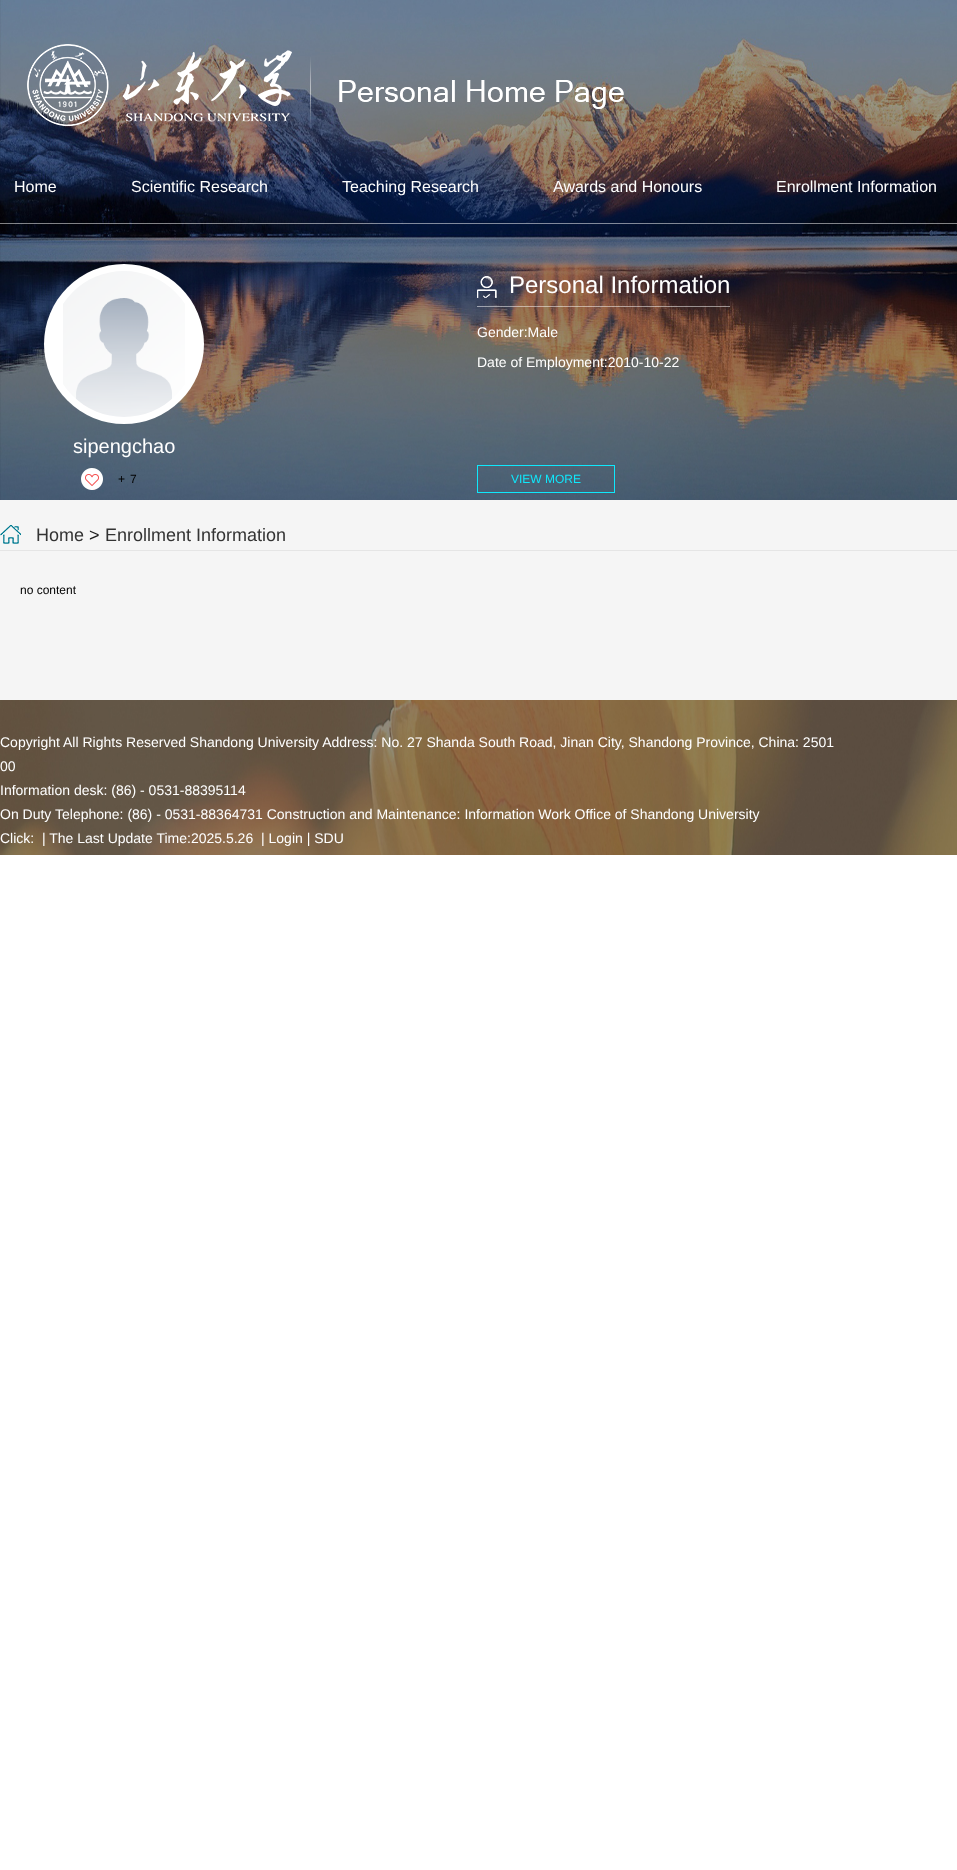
async function draw(canvas) {
  canvas.width = 957;
  canvas.height = 1870;
  const ctx = canvas.getContext('2d');
  ctx.miterLimit = 4;
  ctx.fontKerning = 'normal';
  function label(s, x, y, font, color) {
    ctx.font = font;
    ctx.fillStyle = color;
    ctx.fillText(s, x, y);
  }
  function rect(x, y, w, h, color) {
    ctx.fillStyle = color;
    ctx.fillRect(x, y, w, h);
  }
  async function image(src, x, y, w, h) {
    const img = new Image();
    img.src = src;
    await img.decode();
    ctx.drawImage(img, x, y, w, h);
  }

  rect(0, 0, 957, 1870, '#fff');
  await image('assets/img1.png', 0, 0, 957, 500);
  await image('assets/img2.png', 27, 44, 597, 82);
  rect(0, 223, 957, 1, '#ffffff80');
  label('Home', 14, 192, '16px Liberation Sans', '#fff');
  label('Scientific Research', 131, 192, '16px Liberation Sans', '#fff');
  label('Teaching Research', 342, 192, '16px Liberation Sans', '#fff');
  label('Awards and Honours', 553, 192, '16px Liberation Sans', '#fff');
  label('Enrollment Information', 776, 192, '16px Liberation Sans', '#fff');
  ctx.beginPath();
  ctx.arc(124, 344, 80, 0, 2 * Math.PI);
  ctx.fill();
  await image('assets/img3.png', 63, 271, 122, 146);
  label('sipengchao', 73, 453, '20px Liberation Sans', '#fff');
  await image('assets/img4.png', 81, 468, 22, 22);
  label('+', 118, 483, '12px Liberation Sans', '#000');
  label('7', 130, 483, '12px Liberation Sans', '#000');
  rect(477, 306, 253, 1, '#ffffff80');
  await image('assets/img5.png', 477, 276, 20, 22);
  label('Personal Information', 509, 293, '24px Liberation Sans', '#fff');
  label('Gender:Male', 477, 337, '14px Liberation Sans', '#fff');
  label('Date of Employment:2010-10-22', 477, 367, '14px Liberation Sans', '#fff');
  ctx.strokeStyle = '#0fe8fc';
  ctx.strokeRect(477.5, 465.5, 137, 27);
  label('VIEW MORE', 511, 483, '12px Liberation Sans', '#0fe8fc');
  rect(0, 500, 957, 200, '#f5f5f5');
  rect(0, 550, 957, 1, '#e5e5e5');
  await image('assets/img6.png', 0, 525, 21, 19);
  label('Home', 36, 541, '18px Liberation Sans', '#333');
  label('>', 89, 541, '18px Liberation Sans', '#191919');
  label('Enrollment Information', 105, 541, '18px Liberation Sans', '#333');
  label('no content', 20, 594, '12px Liberation Sans', '#000');
  await image('assets/img7.png', 0, 700, 957, 155);
  label('Copyright All Rights Reserved Shandong University Address: No. 27 Shanda South Road, Jinan City, Shandong Province, China: 2501', 0, 747, '14px Liberation Sans', '#fff');
  label('00', 0, 771, '14px Liberation Sans', '#fff');
  label('Information desk: (86) - 0531-88395114', 0, 795, '14px Liberation Sans', '#fff');
  label('On Duty Telephone: (86) - 0531-88364731 Construction and Maintenance: Information Work Office of Shandong University', 0, 819, '14px Liberation Sans', '#fff');
  label('Click:', 0, 843, '14px Liberation Sans', '#fff');
  label('| The Last Update Time:2025.5.26', 42, 843, '14px Liberation Sans', '#fff');
  label('| Login | SDU', 261, 843, '14px Liberation Sans', '#fff');
}

draw(document.querySelector('canvas'));
